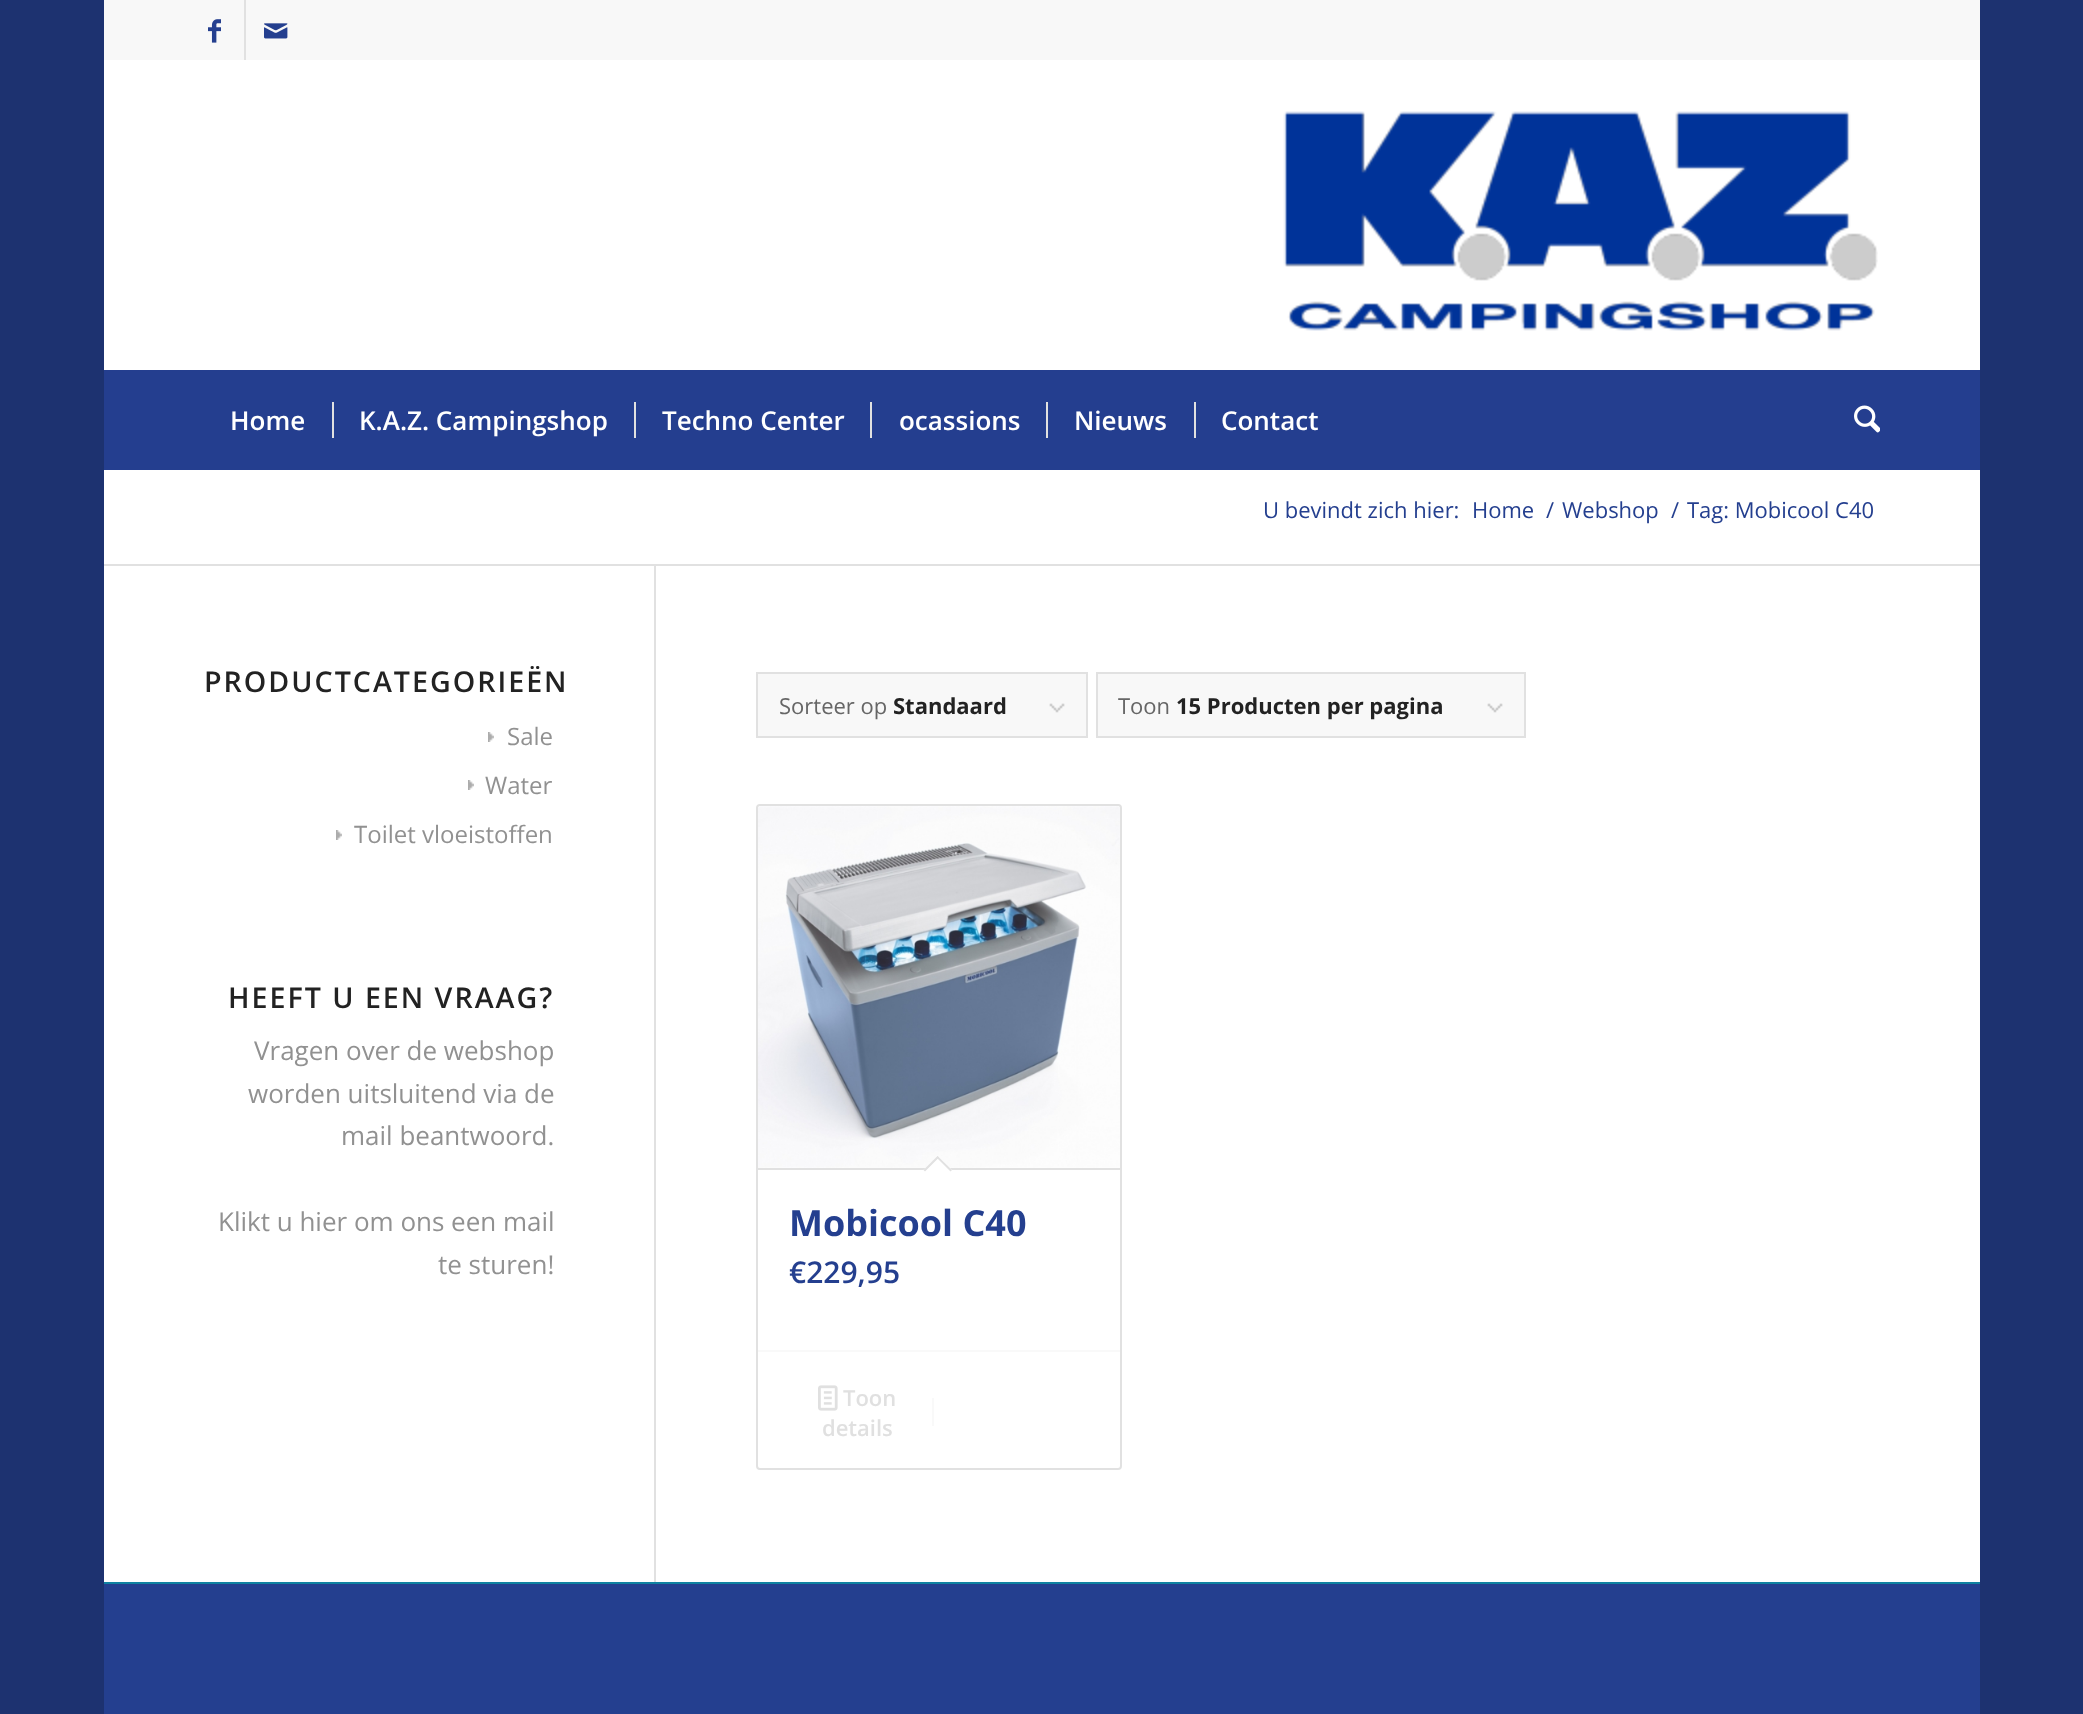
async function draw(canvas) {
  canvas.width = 2083;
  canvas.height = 1714;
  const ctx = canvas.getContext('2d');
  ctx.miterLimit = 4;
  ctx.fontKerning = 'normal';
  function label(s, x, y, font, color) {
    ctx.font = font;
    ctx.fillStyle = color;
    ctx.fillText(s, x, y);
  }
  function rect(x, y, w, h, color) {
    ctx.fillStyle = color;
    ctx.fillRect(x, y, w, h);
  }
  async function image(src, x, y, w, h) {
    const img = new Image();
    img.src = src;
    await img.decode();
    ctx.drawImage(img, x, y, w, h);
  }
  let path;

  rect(0, 0, 2083, 1714, '#1d3270');
  rect(104, 0, 1876, 60, '#f8f8f8');
  rect(244, 0, 2, 60, '#e1e1e1');
  await image('assets/img1.png', 208, 19, 13, 24);
  await image('assets/img2.png', 264, 23, 24, 16);
  rect(104, 60, 1876, 1522, '#fff');
  await image('assets/img3.png', 1283, 111, 595, 220);
  rect(104, 370, 1876, 100, '#243e8f');
  label('Home', 230, 430, '600 26px Open Sans', '#fff');
  label('K.A.Z. Campingshop', 359, 430, '600 26px Open Sans', '#fff');
  rect(332, 402, 2, 36, '#e1e1e1');
  label('Techno Center', 662, 430, '600 26px Open Sans', '#fff');
  rect(634, 402, 2, 36, '#e1e1e1');
  label('ocassions', 899, 430, '600 26px Open Sans', '#fff');
  rect(870, 402, 2, 36, '#e1e1e1');
  label('Nieuws', 1074, 430, '600 26px Open Sans', '#fff');
  rect(1046, 402, 2, 36, '#e1e1e1');
  label('Contact', 1221, 430, '600 26px Open Sans', '#fff');
  rect(1194, 402, 2, 36, '#e1e1e1');
  await image('assets/img4.png', 1854, 405, 26, 28);
  label('U bevindt zich hier:', 1263, 518, '22px Open Sans', '#243f8f');
  label('Home', 1472, 518, '22px Open Sans', '#243f8f');
  label('/', 1546, 518, '22px Open Sans', '#243f8f');
  label('Webshop', 1562, 518, '22px Open Sans', '#243f8f');
  label('/', 1671, 518, '22px Open Sans', '#243f8f');
  label('Tag: Mobicool C40', 1687, 518, '22px Open Sans', '#243f8f');
  rect(104, 564, 1876, 2, '#e1e1e1');
  ctx.letterSpacing = '2px';
  label('PRODUCTCATEGORIEËN', 204, 692, '600 28.6px Open Sans', '#222');
  await image('assets/img5.png', 488, 732, 6, 10);
  ctx.letterSpacing = '0px';
  label('Sale', 507, 745, '24px Open Sans', '#919191');
  await image('assets/img5.png', 468, 780, 6, 10);
  label('Water', 485, 794, '24px Open Sans', '#919191');
  await image('assets/img5.png', 336, 830, 6, 10);
  label('Toilet vloeistoffen', 354, 843, '24px Open Sans', '#919191');
  ctx.letterSpacing = '2px';
  label('HEEFT U EEN VRAAG?', 228, 1008, '600 28.6px Open Sans', '#222');
  ctx.letterSpacing = '0px';
  label('Vragen over de webshop', 254, 1060, '26px Open Sans', '#919191');
  label('worden uitsluitend via de', 248, 1103, '26px Open Sans', '#919191');
  label('mail beantwoord.', 341, 1145, '26px Open Sans', '#919191');
  label('Klikt u hier om ons een mail', 218, 1231, '26px Open Sans', '#919191');
  label('te sturen!', 438, 1274, '26px Open Sans', '#919191');
  rect(654, 566, 2, 1016, '#e1e1e1');
  rect(758, 674, 328, 62, '#f8f8f8');
  await image('assets/img6.png', 1049, 703, 16, 10);
  ctx.strokeStyle = '#e1e1e1';
  ctx.lineWidth = 2;
  ctx.strokeRect(757, 673, 330, 64);
  label('Sorteer op', 779, 714, '22px Open Sans', '#666');
  label('Standaard', 893, 714, 'bold 22px Open Sans', '#222');
  rect(1098, 674, 426, 62, '#f8f8f8');
  await image('assets/img6.png', 1487, 703, 16, 10);
  ctx.strokeRect(1097, 673, 428, 64);
  label('Toon', 1118, 714, '22px Open Sans', '#666');
  label('15 Producten per pagina', 1176, 714, 'bold 22px Open Sans', '#222');
  ctx.beginPath();
  ctx.roundRect(757, 805, 364, 664, 3);
  ctx.stroke();
  await image('assets/img7.png', 758, 806, 362, 362);
  rect(758, 1168, 362, 2, '#e1e1e1');
  ctx.fillStyle = '#fff';
  path = new Path2D('M937.5 1156L952 1170L937.5 1184.5L923.5 1170Z');
  ctx.fill(path);
  ctx.fillStyle = '#e1e1e1';
  path = new Path2D('M937.5 1156L952 1170L950.5 1171.5L936.5 1157.5Z');
  ctx.fill(path);
  path = new Path2D('M937.5 1156L939 1157.5L925 1171.5L923.5 1170Z');
  ctx.fill(path);
  label('Mobicool C40', 789, 1236, 'bold 36px Open Sans', '#243f8f');
  label('€229,95', 789, 1283, '600 30px Open Sans', '#243f8f');
  rect(758, 1350, 362, 2, '#f9f9f9');
  await image('assets/img8.png', 818, 1385, 20, 26);
  label('Toon', 843, 1406, '600 22px Open Sans', '#e0e0e0');
  label('details', 822, 1436, '600 22px Open Sans', '#e0e0e0');
  rect(932, 1398, 2, 28, '#f9f9f9');
  rect(104, 1584, 1876, 130, '#243f8f');
  rect(104, 1582, 1876, 2, '#0f81a1');
}

draw(document.querySelector('canvas'));
